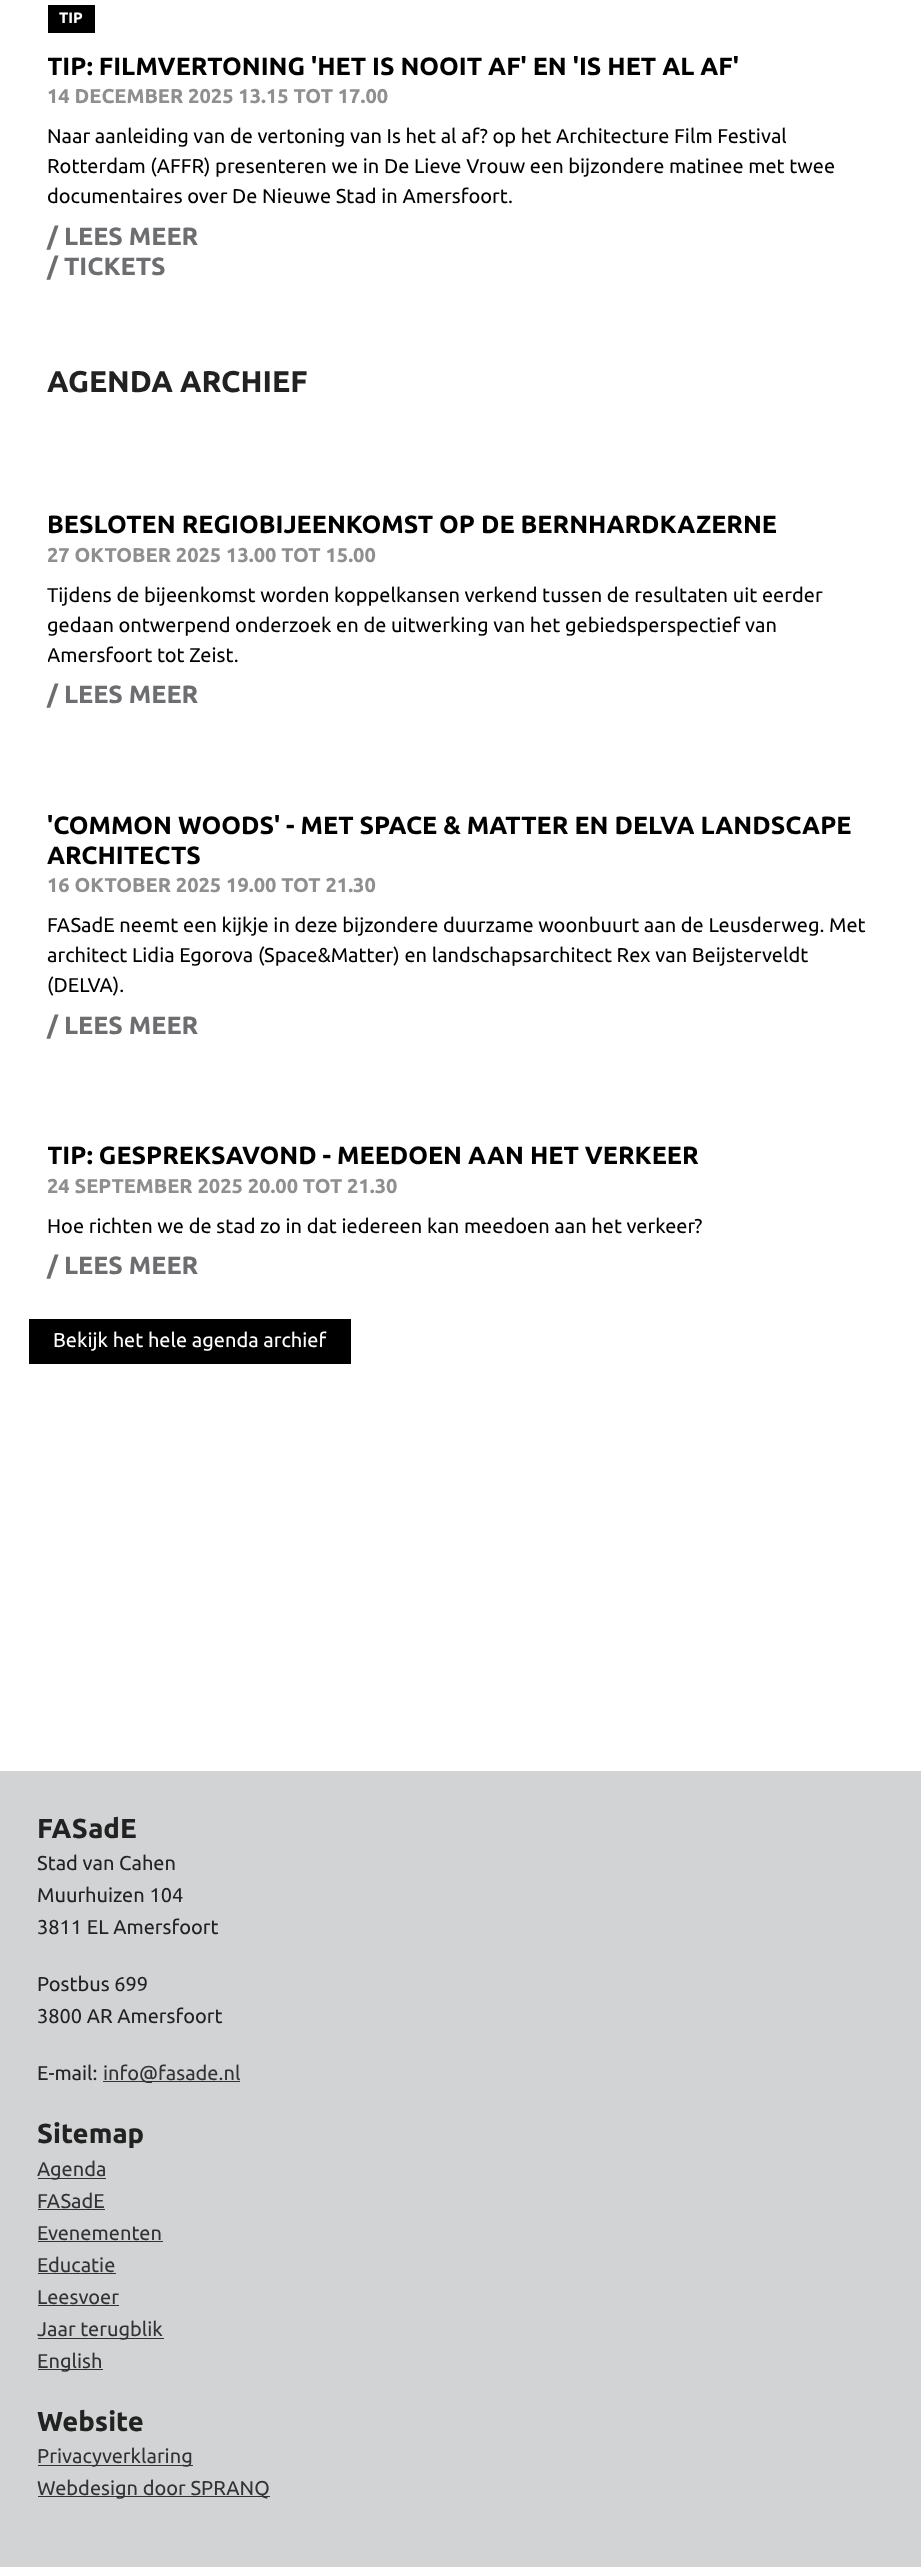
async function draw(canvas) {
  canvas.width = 921;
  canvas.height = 2567;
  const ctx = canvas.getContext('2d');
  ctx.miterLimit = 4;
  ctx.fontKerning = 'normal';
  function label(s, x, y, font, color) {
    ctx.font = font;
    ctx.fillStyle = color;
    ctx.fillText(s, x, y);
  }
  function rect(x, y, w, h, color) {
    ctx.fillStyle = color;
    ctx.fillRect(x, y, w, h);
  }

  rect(0, 0, 921, 2567, '#fff');
  rect(48, 5, 47, 28, '#000');
  label('TIP', 59, 23, 'bold 15px Ubuntu', '#fff');
  ctx.save();
  ctx.beginPath();
  ctx.rect(48, 51, 827, 30);
  ctx.clip();
  label('TIP: FILMVERTONING \'HET IS NOOIT AF\' EN \'IS HET AL AF\'', 47, 75, 'bold 25px Ubuntu', '#000');
  ctx.restore();
  label('14 DECEMBER 2025 13.15 TOT 17.00', 47, 103, 'bold 20px Ubuntu', '#8f8f8f');
  label('Naar aanleiding van de vertoning van Is het al af? op het Architecture Film Festival', 47, 143, '20px Ubuntu', '#000');
  label('Rotterdam (AFFR) presenteren we in De Lieve Vrouw een bijzondere matinee met twee', 47, 173, '20px Ubuntu', '#000');
  label('documentaires over De Nieuwe Stad in Amersfoort.', 47, 203, '20px Ubuntu', '#000');
  label('/ LEES MEER', 47, 245, 'bold 25px Ubuntu', '#6d6e71');
  label('/ TICKETS', 47, 275, 'bold 25px Ubuntu', '#6d6e71');
  label('AGENDA ARCHIEF', 47, 392, 'bold 30px Ubuntu', '#222');
  label('BESLOTEN REGIOBIJEENKOMST OP DE BERNHARDKAZERNE', 47, 533, 'bold 25px Ubuntu', '#000');
  label('27 OKTOBER 2025 13.00 TOT 15.00', 47, 562, 'bold 20px Ubuntu', '#8f8f8f');
  label('Tijdens de bijeenkomst worden koppelkansen verkend tussen de resultaten uit eerder', 47, 602, '20px Ubuntu', '#000');
  label('gedaan ontwerpend onderzoek en de uitwerking van het gebiedsperspectief van', 47, 632, '20px Ubuntu', '#000');
  ctx.save();
  ctx.beginPath();
  ctx.rect(48, 579, 827, 90);
  ctx.clip();
  label('Amersfoort tot Zeist.', 47, 662, '20px Ubuntu', '#000');
  ctx.restore();
  label('/ LEES MEER', 47, 703, 'bold 25px Ubuntu', '#6d6e71');
  label('\'COMMON WOODS\' - MET SPACE & MATTER EN DELVA LANDSCAPE', 47, 834, 'bold 25px Ubuntu', '#000');
  label('ARCHITECTS', 47, 864, 'bold 25px Ubuntu', '#000');
  label('16 OKTOBER 2025 19.00 TOT 21.30', 47, 892, 'bold 20px Ubuntu', '#8f8f8f');
  label('FASadE neemt een kijkje in deze bijzondere duurzame woonbuurt aan de Leusderweg. Met', 47, 932, '20px Ubuntu', '#000');
  label('architect Lidia Egorova (Space&Matter) en landschapsarchitect Rex van Beijsterveldt', 47, 962, '20px Ubuntu', '#000');
  label('(DELVA).', 47, 992, '20px Ubuntu', '#000');
  label('/ LEES MEER', 47, 1034, 'bold 25px Ubuntu', '#6d6e71');
  ctx.save();
  ctx.beginPath();
  ctx.rect(48, 1140, 827, 30);
  ctx.clip();
  label('TIP: GESPREKSAVOND - MEEDOEN AAN HET VERKEER', 47, 1164, 'bold 25px Ubuntu', '#000');
  ctx.restore();
  label('24 SEPTEMBER 2025 20.00 TOT 21.30', 47, 1193, 'bold 20px Ubuntu', '#8f8f8f');
  label('Hoe richten we de stad zo in dat iedereen kan meedoen aan het verkeer?', 47, 1233, '20px Ubuntu', '#000');
  label('/ LEES MEER', 47, 1274, 'bold 25px Ubuntu', '#6d6e71');
  rect(29, 1319, 322, 45, '#000');
  label('Bekijk het hele agenda archief', 53, 1347, '20px Ubuntu', '#fff');
  rect(0, 1771, 921, 796, '#d1d3d4');
  label('FASadE', 37, 1838, 'bold 27.5px Ubuntu', '#222');
  label('Stad van Cahen', 37, 1870, '20px Ubuntu', '#222');
  label('Muurhuizen 104', 37, 1902, '20px Ubuntu', '#222');
  label('3811 EL Amersfoort', 37, 1934, '20px Ubuntu', '#222');
  label('Postbus 699', 37, 1991, '20px Ubuntu', '#222');
  label('3800 AR Amersfoort', 37, 2023, '20px Ubuntu', '#222');
  label('E-mail:', 37, 2080, '20px Ubuntu', '#222');
  rect(103, 2081, 137, 1, '#333');
  label('info@fasade.nl', 103, 2080, '20px Ubuntu', '#333');
  label('Sitemap', 37, 2143, 'bold 27.5px Ubuntu', '#222');
  rect(38, 2178, 68, 1, '#333');
  label('Agenda', 37, 2176, '20px Ubuntu', '#333');
  label('FASadE', 37, 2208, '20px Ubuntu', '#333');
  rect(38, 2209, 67, 1, '#333');
  label('Evenementen', 37, 2240, '20px Ubuntu', '#333');
  rect(38, 2241, 125, 1, '#333');
  label('Educatie', 37, 2272, '20px Ubuntu', '#333');
  rect(38, 2273, 78, 1, '#333');
  label('Leesvoer', 37, 2304, '20px Ubuntu', '#333');
  rect(38, 2305, 81, 1, '#333');
  rect(38, 2338, 126, 1, '#333');
  label('Jaar terugblik', 37, 2336, '20px Ubuntu', '#333');
  rect(38, 2369, 65, 1, '#333');
  label('English', 37, 2368, '20px Ubuntu', '#333');
  label('Website', 37, 2431, 'bold 27.5px Ubuntu', '#222');
  rect(38, 2465, 155, 1, '#333');
  label('Privacyverklaring', 37, 2463, '20px Ubuntu', '#333');
  rect(38, 2496, 232, 1, '#333');
  label('Webdesign door SPRANQ', 37, 2495, '20px Ubuntu', '#333');
}

draw(document.querySelector('canvas'));
